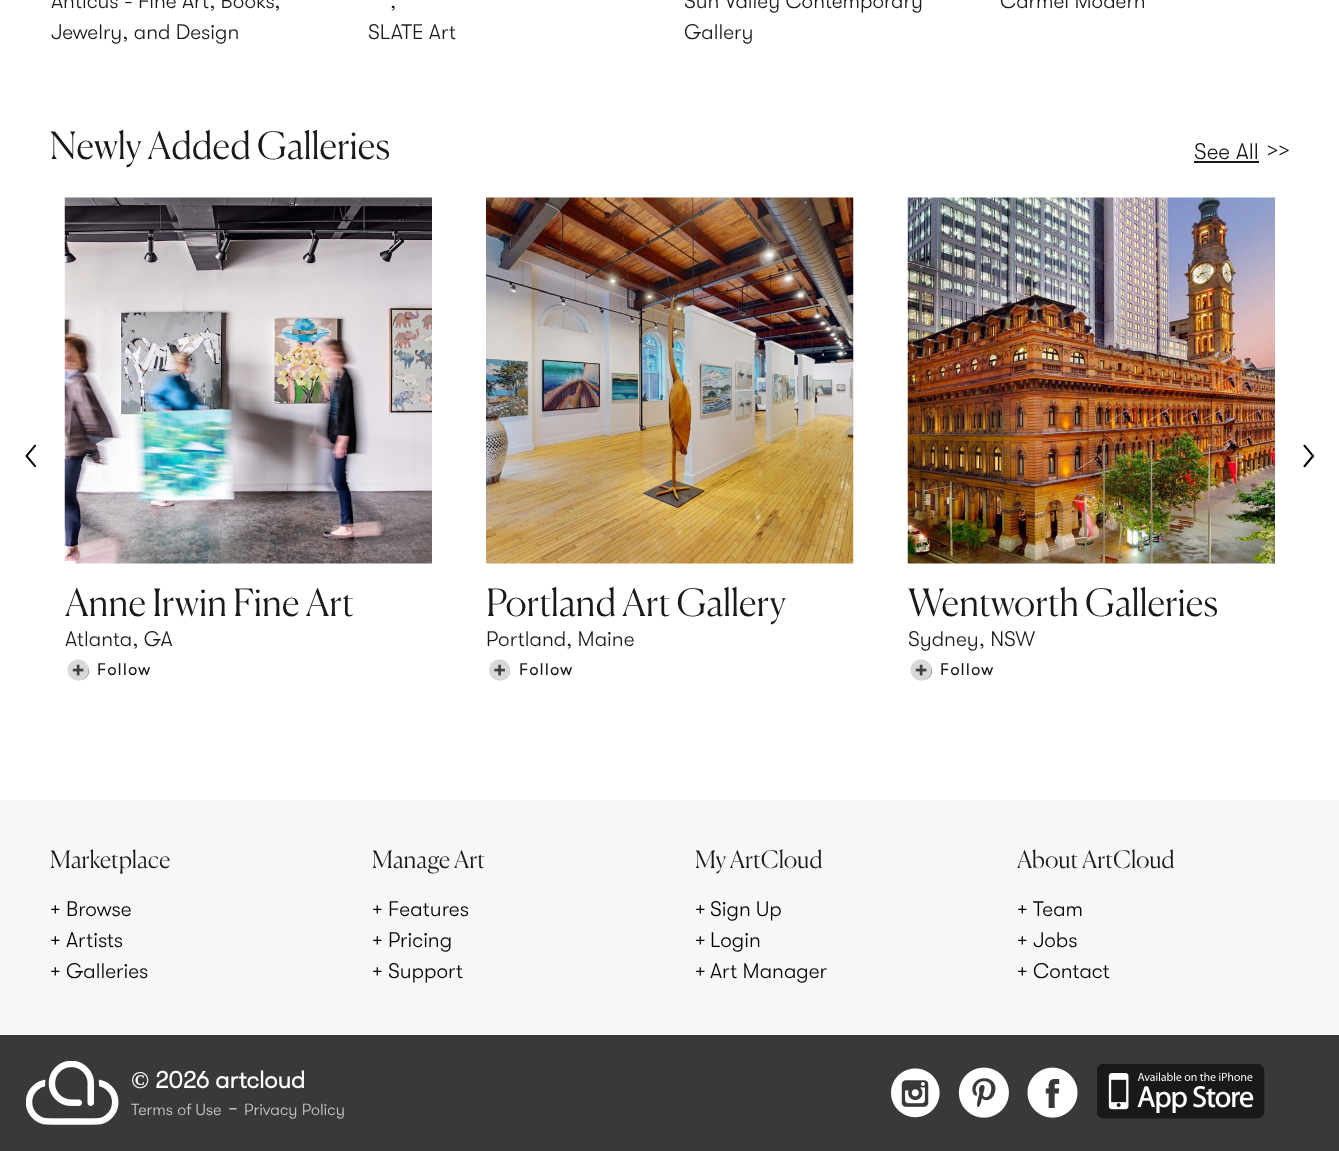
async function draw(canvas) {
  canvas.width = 1339;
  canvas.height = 1151;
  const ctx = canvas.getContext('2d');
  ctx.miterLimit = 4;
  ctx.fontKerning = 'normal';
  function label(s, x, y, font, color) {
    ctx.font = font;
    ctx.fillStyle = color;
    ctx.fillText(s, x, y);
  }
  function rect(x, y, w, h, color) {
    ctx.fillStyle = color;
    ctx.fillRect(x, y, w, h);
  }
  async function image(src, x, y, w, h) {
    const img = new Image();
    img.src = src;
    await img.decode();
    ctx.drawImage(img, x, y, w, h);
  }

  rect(0, 0, 1339, 1151, '#fff');
  label('Anticus - Fine Art, Books,', 51, 8, '300 21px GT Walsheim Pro', '#18191a');
  label('Jewelry, and Design', 51, 39, '300 21px GT Walsheim Pro', '#18191a');
  label(',', 390, 8, '300 21px GT Walsheim Pro', '#18191a');
  label('SLATE Art', 368, 39, '300 21px GT Walsheim Pro', '#18191a');
  label('Sun Valley Contemporary', 684, 8, '300 21px GT Walsheim Pro', '#18191a');
  label('Gallery', 684, 39, '300 21px GT Walsheim Pro', '#18191a');
  label('Carmel Modern', 1000, 8, '300 21px GT Walsheim Pro', '#18191a');
  label('Newly Added Galleries', 50, 159, '300 37.5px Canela', '#18191a');
  label('See All', 1194, 159, '300 22.5px GT Walsheim Pro', '#18191a');
  rect(1194, 161, 65, 2, '#18191a');
  label('>>', 1267, 157, 'bold 20px Liberation Serif', '#18191a');
  await image('assets/img1.png', 25, 444, 11, 24);
  await image('assets/img2.png', 1303, 444, 11, 24);
  await image('assets/img3.png', 64, 197, 368, 367);
  label('Anne Irwin Fine Art', 65, 616, '300 37.5px Canela', '#18191a');
  label('Atlanta, GA', 65, 646, '300 21px GT Walsheim Pro', '#18191a');
  ctx.fillStyle = '#414141';
  ctx.beginPath();
  ctx.arc(80, 671, 9, 0, 2 * Math.PI);
  ctx.fill();
  await image('assets/img4.png', 67, 659, 22, 22);
  ctx.letterSpacing = '1.5px';
  label('Follow', 97, 675, 'bold 16.25px GT Walsheim Pro', '#18191a');
  await image('assets/img5.png', 486, 197, 368, 367);
  ctx.letterSpacing = '0px';
  label('Portland Art Gallery', 486, 616, '300 37.5px Canela', '#18191a');
  label('Portland, Maine', 486, 646, '300 21px GT Walsheim Pro', '#18191a');
  ctx.fillStyle = '#414141';
  ctx.beginPath();
  ctx.arc(501, 671, 9, 0, 2 * Math.PI);
  ctx.fill();
  await image('assets/img6.png', 489, 659, 22, 22);
  ctx.letterSpacing = '1.5px';
  label('Follow', 519, 675, 'bold 16.25px GT Walsheim Pro', '#18191a');
  await image('assets/img7.png', 907, 197, 368, 367);
  ctx.letterSpacing = '0px';
  label('Wentworth Galleries', 908, 616, '300 37.5px Canela', '#18191a');
  label('Sydney, NSW', 908, 646, '300 21px GT Walsheim Pro', '#18191a');
  ctx.fillStyle = '#414141';
  ctx.beginPath();
  ctx.arc(923, 671, 9, 0, 2 * Math.PI);
  ctx.fill();
  await image('assets/img4.png', 910, 659, 22, 22);
  ctx.letterSpacing = '1.5px';
  label('Follow', 940, 675, 'bold 16.25px GT Walsheim Pro', '#18191a');
  rect(0, 800, 1339, 235, '#f7f7f7');
  ctx.letterSpacing = '0px';
  label('Marketplace', 50, 868, '300 24px Canela', '#18191a');
  label('+', 50, 916, '300 21px GT Walsheim Pro', '#000');
  label('Browse', 66, 916, '300 21px GT Walsheim Pro', '#000');
  label('+', 50, 947, '300 21px GT Walsheim Pro', '#000');
  label('Artists', 66, 947, '300 21px GT Walsheim Pro', '#000');
  label('+', 50, 978, '300 21px GT Walsheim Pro', '#000');
  label('Galleries', 66, 978, '300 21px GT Walsheim Pro', '#000');
  label('Manage Art', 372, 868, '300 24px Canela', '#18191a');
  label('+', 372, 916, '300 21px GT Walsheim Pro', '#000');
  label('Features', 388, 916, '300 21px GT Walsheim Pro', '#000');
  label('+', 372, 947, '300 21px GT Walsheim Pro', '#000');
  label('Pricing', 388, 947, '300 21px GT Walsheim Pro', '#000');
  label('+', 372, 978, '300 21px GT Walsheim Pro', '#000');
  label('Support', 388, 978, '300 21px GT Walsheim Pro', '#000');
  label('My ArtCloud', 695, 868, '300 24px Canela', '#18191a');
  label('+', 695, 916, '300 21px GT Walsheim Pro', '#000');
  label('Sign Up', 710, 916, '300 21px GT Walsheim Pro', '#000');
  label('+', 695, 947, '300 21px GT Walsheim Pro', '#000');
  label('Login', 710, 947, '300 21px GT Walsheim Pro', '#000');
  label('+', 695, 978, '300 21px GT Walsheim Pro', '#000');
  label('Art Manager', 710, 978, '300 21px GT Walsheim Pro', '#000');
  label('About ArtCloud', 1017, 868, '300 24px Canela', '#18191a');
  label('+', 1017, 916, '300 21px GT Walsheim Pro', '#000');
  label('Team', 1033, 916, '300 21px GT Walsheim Pro', '#000');
  label('+', 1017, 947, '300 21px GT Walsheim Pro', '#000');
  label('Jobs', 1033, 947, '300 21px GT Walsheim Pro', '#000');
  label('+', 1017, 978, '300 21px GT Walsheim Pro', '#000');
  label('Contact', 1033, 978, '300 21px GT Walsheim Pro', '#000');
  rect(0, 1035, 1339, 116, '#393939');
  await image('assets/img8.png', 26, 1061, 93, 64);
  label('©', 131, 1088, 'bold 24px Liberation Serif', '#fff');
  label('2026 artcloud', 155, 1088, 'bold 24px GT Walsheim Pro', '#fff');
  label('Terms of Use', 131, 1115, '300 16.25px GT Walsheim Pro', '#cacaca');
  label('-', 228, 1115, '300 24px GT Walsheim Pro', '#cacaca');
  label('Privacy Policy', 244, 1115, '300 16.25px GT Walsheim Pro', '#cacaca');
  await image('assets/img9.png', 891, 1068, 49, 50);
  await image('assets/img10.png', 958, 1067, 51, 51);
  await image('assets/img11.png', 1027, 1067, 51, 51);
  await image('assets/img12.png', 1097, 1064, 168, 55);
}

draw(document.querySelector('canvas'));
